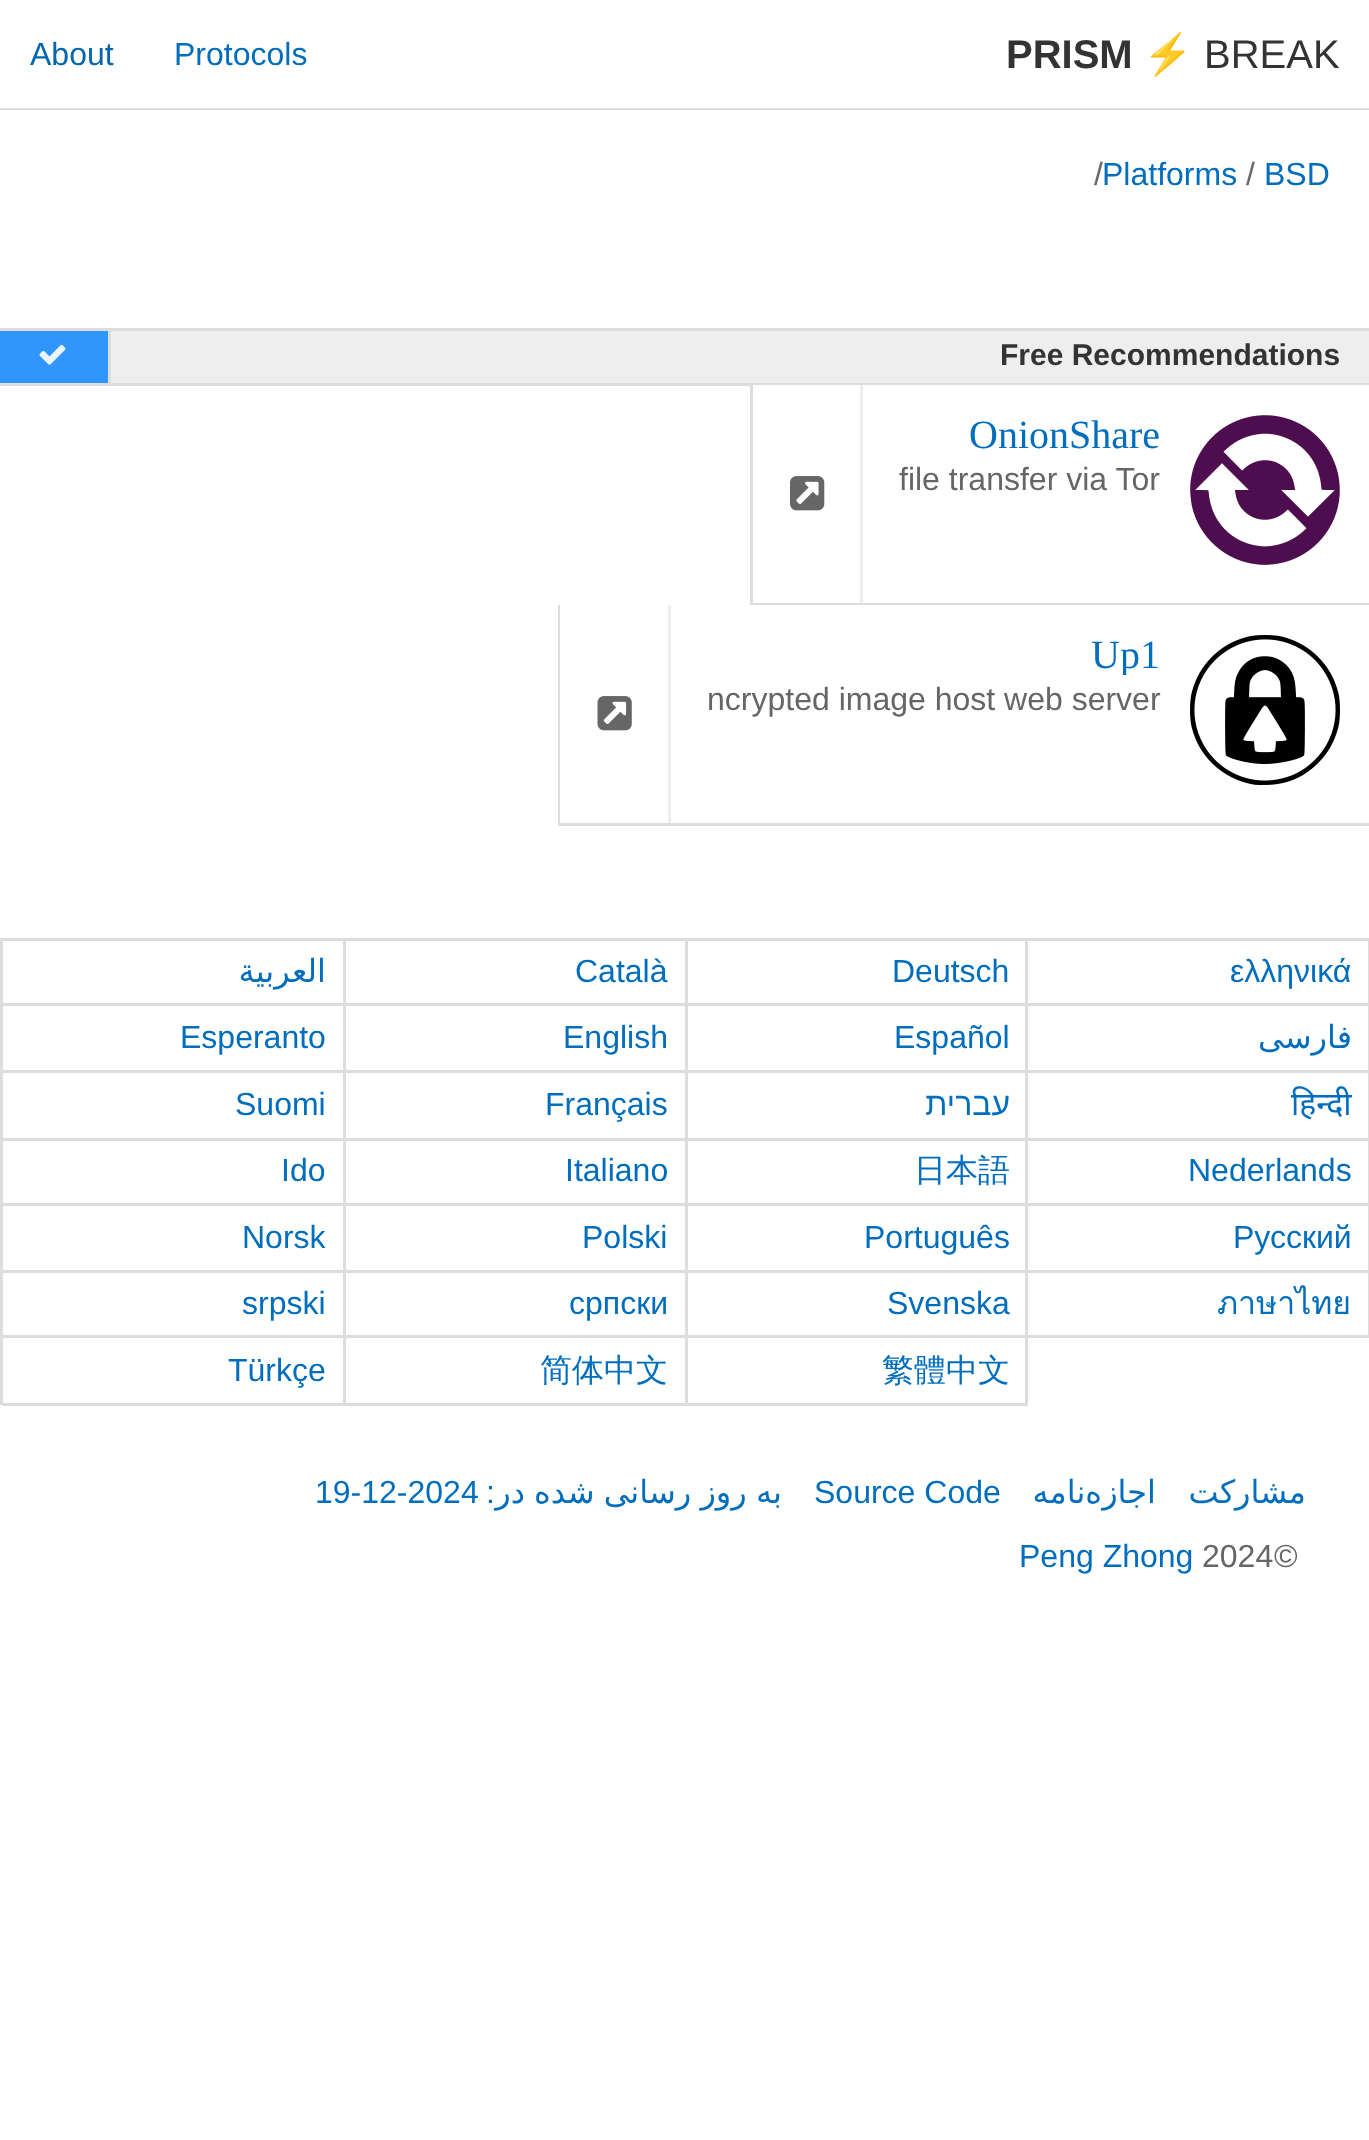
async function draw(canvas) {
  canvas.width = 1369;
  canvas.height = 2140;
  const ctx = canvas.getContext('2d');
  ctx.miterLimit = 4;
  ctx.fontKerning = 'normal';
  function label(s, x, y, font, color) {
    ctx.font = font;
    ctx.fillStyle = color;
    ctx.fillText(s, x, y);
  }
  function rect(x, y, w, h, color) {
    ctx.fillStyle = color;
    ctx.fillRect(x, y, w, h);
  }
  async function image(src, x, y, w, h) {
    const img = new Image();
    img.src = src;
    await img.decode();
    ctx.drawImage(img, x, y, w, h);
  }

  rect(0, 0, 1369, 2140, '#fff');
  rect(0, 108, 1369, 2, '#ddd');
  label('About', 30, 65, '32px Liberation Sans', '#0467ae');
  label('Protocols', 174, 65, '32px Liberation Sans', '#006ebd');
  label('PRISM', 1006, 68, 'bold 40px Liberation Sans', '#333');
  label('⚡', 1143, 68, '40px Noto Color Emoji', '#999');
  label('BREAK', 1204, 68, '40px Liberation Sans', '#333');
  rect(108, 330, 3, 53, '#ddd');
  rect(0, 328, 1369, 3, '#ddd');
  label('/', 1094, 185, '32px Liberation Sans', '#666');
  label('Platforms', 1102, 185, '32px Liberation Sans', '#006ebd');
  label('/', 1246, 185, '32px Liberation Sans', '#666');
  label('BSD', 1264, 185, '32px Liberation Sans', '#006ebd');
  rect(111, 331, 1258, 52, '#eee');
  rect(0, 383, 1369, 3, '#ddd');
  rect(0, 331, 108, 52, '#3095fc');
  await image('assets/img1.png', 39, 344, 27, 21);
  label('Free Recommendations', 1000, 365, 'bold 30px Liberation Sans', '#333');
  rect(753, 385, 616, 1, '#fff');
  rect(750, 603, 619, 2, '#ddd');
  rect(750, 385, 3, 220, '#ddd');
  rect(860, 385, 3, 218, '#eee');
  await image('assets/img2.png', 790, 476, 35, 35);
  label('OnionShare', 969, 448, '40px Liberation Serif', '#006ebd');
  await image('assets/img3.png', 1190, 415, 150, 150);
  label('file transfer via Tor', 899, 490, '32px Liberation Sans', '#666');
  rect(558, 823, 811, 3, '#ddd');
  rect(558, 605, 3, 220, '#ddd');
  rect(560, 605, 1, 218, '#fff');
  rect(668, 605, 3, 218, '#eee');
  await image('assets/img4.png', 597, 696, 35, 35);
  ctx.save();
  ctx.beginPath();
  ctx.rect(700, 635, 460, 40);
  ctx.clip();
  label('Up1', 1091, 668, '40px Liberation Serif', '#006ebd');
  ctx.restore();
  await image('assets/img5.png', 1190, 635, 150, 150);
  label('ncrypted image host web server', 707, 710, '32px Liberation Sans', '#666');
  rect(0, 938, 1369, 3, '#ddd');
  rect(0, 938, 3, 467, '#ddd');
  rect(343, 940, 3, 65, '#ddd');
  rect(3, 1003, 342, 3, '#ddd');
  ctx.direction = 'rtl';
  label('العربية', 326, 982, '32px DejaVu Sans', '#006ebd');
  rect(685, 940, 3, 65, '#ddd');
  rect(345, 1003, 343, 3, '#ddd');
  ctx.direction = 'ltr';
  label('Català', 575, 982, '32px Liberation Sans', '#006ebd');
  rect(1025, 940, 3, 65, '#ddd');
  rect(688, 1003, 340, 3, '#ddd');
  label('Deutsch', 892, 982, '32px Liberation Sans', '#006ebd');
  rect(1368, 940, 1, 65, '#ddd');
  rect(1028, 1003, 341, 3, '#ddd');
  label('ελληνικά', 1230, 982, '32px Liberation Sans', '#006ebd');
  rect(343, 1005, 3, 135, '#ddd');
  rect(3, 1070, 342, 3, '#ddd');
  label('Esperanto', 180, 1048, '32px Liberation Sans', '#006ebd');
  rect(685, 1005, 3, 135, '#ddd');
  rect(345, 1070, 343, 3, '#ddd');
  label('English', 563, 1048, '32px Liberation Sans', '#006ebd');
  rect(1025, 1005, 3, 135, '#ddd');
  rect(688, 1070, 340, 3, '#ddd');
  label('Español', 894, 1048, '32px Liberation Sans', '#006ebd');
  rect(1368, 1005, 1, 135, '#ddd');
  rect(1028, 1070, 341, 3, '#ddd');
  ctx.direction = 'rtl';
  label('فارسی', 1352, 1048, '32px DejaVu Sans', '#006ebd');
  rect(3, 1138, 1366, 3, '#ddd');
  ctx.direction = 'ltr';
  label('Suomi', 235, 1115, '32px Liberation Sans', '#006ebd');
  label('Français', 545, 1115, '32px Liberation Sans', '#006ebd');
  ctx.direction = 'rtl';
  label('עברית', 1010, 1115, '32px Liberation Sans', '#006ebd');
  ctx.direction = 'ltr';
  label('हिन्दी', 1291, 1115, '32px Noto Sans', '#006ebd');
  rect(343, 1140, 3, 65, '#ddd');
  rect(3, 1203, 342, 3, '#ddd');
  label('Ido', 281, 1181, '32px Liberation Sans', '#006ebd');
  rect(685, 1140, 3, 65, '#ddd');
  rect(345, 1203, 343, 3, '#ddd');
  label('Italiano', 565, 1181, '32px Liberation Sans', '#006ebd');
  rect(1025, 1140, 3, 65, '#ddd');
  rect(688, 1203, 340, 3, '#ddd');
  label('日本語', 914, 1181, '500 32px WenQuanYi Zen Hei', '#006ebd');
  rect(1368, 1140, 1, 65, '#ddd');
  rect(1028, 1203, 341, 3, '#ddd');
  label('Nederlands', 1188, 1181, '32px Liberation Sans', '#006ebd');
  rect(343, 1205, 3, 200, '#ddd');
  rect(3, 1270, 342, 3, '#ddd');
  label('Norsk', 242, 1248, '32px Liberation Sans', '#006ebd');
  rect(685, 1205, 3, 200, '#ddd');
  rect(345, 1270, 343, 3, '#ddd');
  label('Polski', 582, 1248, '32px Liberation Sans', '#006ebd');
  rect(1025, 1205, 3, 200, '#ddd');
  rect(688, 1270, 340, 3, '#ddd');
  label('Português', 864, 1248, '32px Liberation Sans', '#006ebd');
  rect(1368, 1205, 1, 133, '#ddd');
  rect(1028, 1270, 341, 3, '#ddd');
  label('Русский', 1233, 1248, '32px Liberation Sans', '#006ebd');
  rect(3, 1335, 1366, 3, '#ddd');
  label('srpski', 242, 1314, '32px Liberation Sans', '#006ebd');
  label('српски', 569, 1314, '32px Liberation Sans', '#006ebd');
  label('Svenska', 887, 1314, '32px Liberation Sans', '#006ebd');
  label('ภาษาไทย', 1217, 1314, '32px Loma', '#006ebd');
  rect(3, 1403, 1025, 3, '#ddd');
  label('Türkçe', 228, 1381, '32px Liberation Sans', '#006ebd');
  label('简体中文', 540, 1381, '500 32px WenQuanYi Zen Hei', '#006ebd');
  label('繁體中文', 882, 1381, '500 32px WenQuanYi Zen Hei', '#006ebd');
  label('19-12-2024', 315, 1503, '32px Liberation Sans', '#006ebd');
  ctx.direction = 'rtl';
  label(':', 495, 1503, '32px Liberation Sans', '#006ebd');
  ctx.wordSpacing = '-1px';
  label('به روز رسانی شده در', 782, 1503, '32px DejaVu Sans', '#006ebd');
  ctx.wordSpacing = '0px';
  ctx.direction = 'ltr';
  label('Source Code', 814, 1503, '32px Liberation Sans', '#006ebd');
  ctx.direction = 'rtl';
  label('اجازه‌نامه', 1156, 1503, '32px DejaVu Sans', '#006ebd');
  label('مشارکت', 1306, 1503, '32px DejaVu Sans', '#006ebd');
  ctx.direction = 'ltr';
  label('Peng Zhong', 1019, 1567, '32px Liberation Sans', '#006ebd');
  label('2024', 1202, 1567, '32px Liberation Sans', '#666');
  label('©', 1274, 1567, '32px Liberation Sans', '#666');
}

draw(document.querySelector('canvas'));
